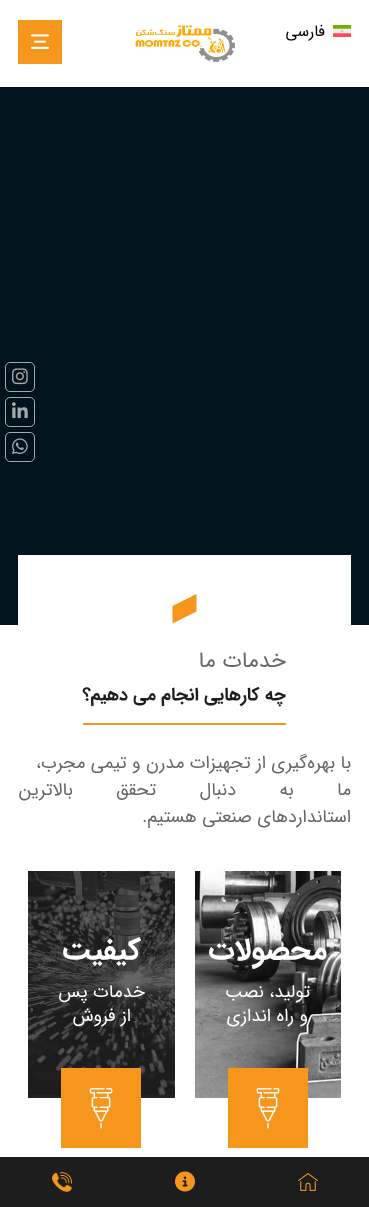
async function draw(canvas) {
  canvas.width = 369;
  canvas.height = 1207;
  const ctx = canvas.getContext('2d');
  ctx.miterLimit = 4;
  ctx.fontKerning = 'normal';
  function label(s, x, y, font, color) {
    ctx.font = font;
    ctx.fillStyle = color;
    ctx.fillText(s, x, y);
  }
  function rect(x, y, w, h, color) {
    ctx.fillStyle = color;
    ctx.fillRect(x, y, w, h);
  }
  async function image(src, x, y, w, h) {
    const img = new Image();
    img.src = src;
    await img.decode();
    ctx.drawImage(img, x, y, w, h);
  }
  let path;

  rect(0, 0, 369, 1207, '#fff');
  await image('assets/img1.png', 333, 25, 18, 12);
  ctx.direction = 'rtl';
  label('فارسی', 325, 36, '16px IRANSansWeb', '#000');
  await image('assets/img2.png', 135, 25, 100, 37);
  rect(18, 20, 44, 44, '#f7961c');
  await image('assets/img3.png', 31, 34, 18, 15);
  rect(0, 87, 369, 538, '#01131c');
  ctx.beginPath();
  ctx.roundRect(5.5, 362.5, 29, 29, 4.5);
  ctx.strokeStyle = '#a7a7a7';
  ctx.stroke();
  await image('assets/img4.png', 12, 368, 16, 17);
  ctx.beginPath();
  ctx.roundRect(5.5, 397.5, 29, 29, 4.5);
  ctx.stroke();
  await image('assets/img5.png', 12, 402, 16, 16);
  ctx.beginPath();
  ctx.roundRect(5.5, 432.5, 29, 29, 4.5);
  ctx.stroke();
  await image('assets/img6.png', 12, 438, 16, 17);
  rect(18, 555, 333, 70, '#fff');
  ctx.fillStyle = '#f7961c';
  path = new Path2D('M196.5 594V611.5L172.5 623.5V606Z');
  ctx.fill(path);
  label('خدمات ما', 286, 667, '22px IRANSansWeb', '#666');
  rect(83, 723, 203, 2, '#f7961c');
  label('چه کارهایی انجام می دهیم؟', 286, 700, 'bold 18px IRANSansWeb', '#1d1d1d');
  label('با بهره‌گیری از تجهیزات مدرن و تیمی مجرب،', 351, 768, '18px IRANSansWeb', '#666');
  ctx.wordSpacing = '38px';
  label('ما به دنبال تحقق بالاترین', 351, 795, '18px IRANSansWeb', '#666');
  ctx.wordSpacing = '0px';
  label('استانداردهای صنعتی هستیم.', 351, 822, '18px IRANSansWeb', '#666');
  await image('assets/img7.png', 195, 871, 146, 227);
  label('محصولات', 327, 959, 'bold 30px IRANSansWeb', '#fff');
  label('تولید، نصب', 310, 997, '18px IRANSansWeb', '#fff');
  label('و راه اندازی', 308, 1021, '18px IRANSansWeb', '#fff');
  rect(228, 1068, 80, 80, '#f7961c');
  await image('assets/img8.png', 256, 1088, 24, 41);
  await image('assets/img9.png', 28, 871, 147, 227);
  label('کیفیت', 141, 959, 'bold 30px IRANSansWeb', '#fff');
  label('خدمات پس', 145, 997, '18px IRANSansWeb', '#fff');
  label('از فروش', 131, 1021, '18px IRANSansWeb', '#fff');
  rect(61, 1068, 80, 80, '#f7961c');
  await image('assets/img10.png', 89, 1088, 24, 41);
  rect(0, 1157, 369, 50, '#1d1d1d');
  await image('assets/img11.png', 298, 1173, 20, 18);
  await image('assets/img12.png', 175, 1171, 20, 21);
  await image('assets/img13.png', 52, 1172, 20, 20);
}

draw(document.querySelector('canvas'));
